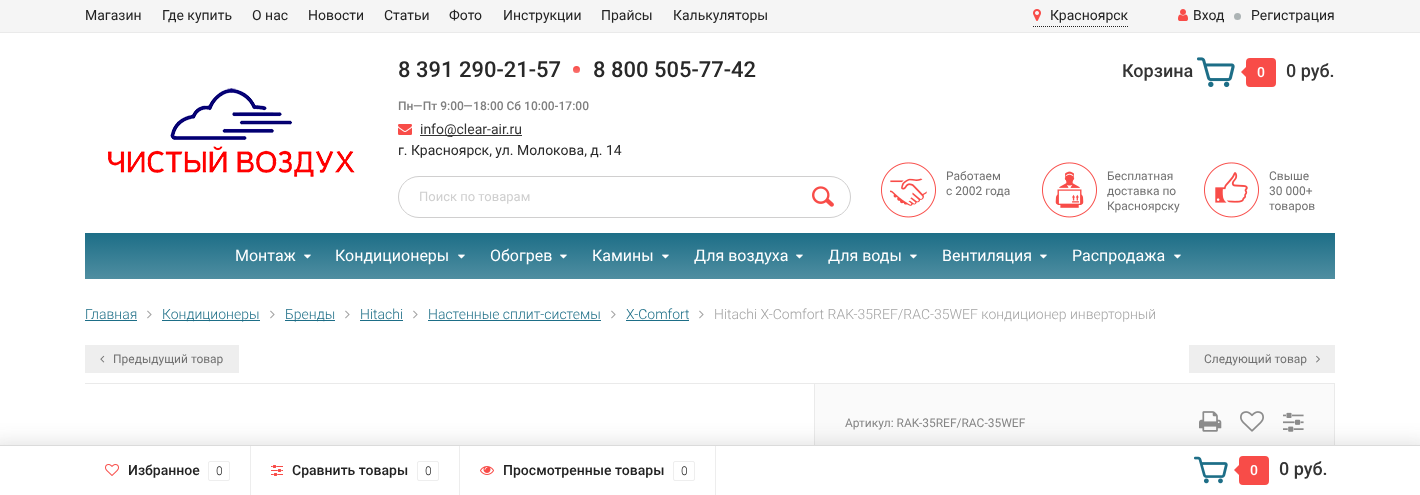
async function draw(canvas) {
  canvas.width = 1420;
  canvas.height = 495;
  const ctx = canvas.getContext('2d');
  ctx.miterLimit = 4;
  ctx.fontKerning = 'normal';
  function label(s, x, y, font, color) {
    ctx.font = font;
    ctx.fillStyle = color;
    ctx.fillText(s, x, y);
  }
  function rect(x, y, w, h, color) {
    ctx.fillStyle = color;
    ctx.fillRect(x, y, w, h);
  }
  async function image(src, x, y, w, h) {
    const img = new Image();
    img.src = src;
    await img.decode();
    ctx.drawImage(img, x, y, w, h);
  }
  let gradient, path;

  rect(0, 0, 1420, 495, '#fff');
  rect(0, 0, 1420, 32, '#f5f5f5');
  rect(0, 32, 1420, 1, '#eaeaea');
  label('Магазин', 85, 20, '14px Roboto', '#222');
  label('Где купить', 162, 20, '14px Roboto', '#222');
  label('О нас', 252, 20, '14px Roboto', '#222');
  label('Новости', 308, 20, '14px Roboto', '#222');
  label('Статьи', 384, 20, '14px Roboto', '#222');
  label('Фото', 449, 20, '14px Roboto', '#222');
  label('Инструкции', 503, 20, '14px Roboto', '#222');
  label('Прайсы', 601, 20, '14px Roboto', '#222');
  label('Калькуляторы', 673, 20, '14px Roboto', '#222');
  path = new Path2D('M1033 26.5H1128');
  ctx.strokeStyle = '#222';
  ctx.setLineDash([1, 1]);
  ctx.stroke(path);
  await image('assets/img1.png', 1033, 9, 8, 12);
  label('Красноярск', 1050, 20, '14px Roboto', '#222');
  await image('assets/img2.png', 1178, 9, 10, 12);
  label('Вход', 1193, 20, '14px Roboto', '#222');
  ctx.fillStyle = '#acb3b4';
  ctx.beginPath();
  ctx.arc(1237.5, 16.5, 3.5, 0, 2 * Math.PI);
  ctx.fill();
  label('Регистрация', 1251, 20, '14px Roboto', '#222');
  await image('assets/img3.png', 108, 88, 247, 89);
  label('8 391 290-21-57', 398, 77, '500 22px Roboto', '#282828');
  ctx.fillStyle = '#f84c48';
  ctx.beginPath();
  ctx.arc(576.5, 69.5, 3.5, 0, 2 * Math.PI);
  ctx.fill();
  gradient = ctx.createLinearGradient(577, 66, 577, 73);
  gradient.addColorStop(0, '#ffffff00');
  gradient.addColorStop(1, '#ffffff38');
  ctx.fillStyle = gradient;
  ctx.beginPath();
  ctx.arc(576.5, 69.5, 3.5, 0, 2 * Math.PI);
  ctx.fill();
  label('8 800 505-77-42', 593, 77, '500 22px Roboto', '#282828');
  label('Пн—Пт 9:00—18:00 Сб 10:00-17:00', 398, 110, '500 12px Roboto', '#7f7f7f');
  await image('assets/img4.png', 398, 124, 14, 11);
  rect(420, 135, 102, 1, '#343434');
  label('info@clear-air.ru', 420, 134, '14px Roboto', '#343434');
  label('г. Красноярск, ул. Молокова, д. 14', 398, 155, '14px Roboto', '#282828');
  label('Корзина', 1122, 77, '500 18px Roboto', '#343434');
  await image('assets/img5.png', 1197, 57, 38, 31);
  ctx.fillStyle = '#f84c48';
  ctx.beginPath();
  ctx.roundRect(1248, 60, 26, 25, 2);
  ctx.fill();
  ctx.strokeStyle = '#f84c48';
  ctx.lineWidth = 4;
  ctx.setLineDash([]);
  ctx.stroke();
  path = new Path2D('M1250 63V81L1241 72Z');
  ctx.fill(path);
  label('0', 1257, 77, '500 14px Roboto', '#fff');
  label('0 руб.', 1286, 77, '500 18px Roboto', '#343434');
  ctx.beginPath();
  ctx.roundRect(398.5, 176.5, 452, 41, 20.5);
  ctx.strokeStyle = '#d0cfcf';
  ctx.lineWidth = 1;
  ctx.stroke();
  label('Поиск по товарам', 419, 201, '13px Roboto', '#cfcfcf');
  await image('assets/img6.png', 812, 186, 22, 21);
  await image('assets/img7.png', 881, 162, 55, 56);
  label('Работаем', 946, 180, '12px Roboto', '#717171');
  label('с 2002 года', 946, 195, '12px Roboto', '#717171');
  await image('assets/img8.png', 1042, 162, 55, 56);
  label('Бесплатная', 1107, 180, '12px Roboto', '#717171');
  label('доставка по', 1107, 195, '12px Roboto', '#717171');
  label('Красноярску', 1107, 210, '12px Roboto', '#717171');
  await image('assets/img9.png', 1204, 162, 55, 56);
  label('Свыше', 1269, 180, '12px Roboto', '#717171');
  label('30 000+', 1269, 195, '12px Roboto', '#717171');
  label('товаров', 1269, 210, '12px Roboto', '#717171');
  gradient = ctx.createLinearGradient(710, 233, 710, 279);
  gradient.addColorStop(0, '#1d6e87');
  gradient.addColorStop(1, '#4f8ea1');
  ctx.fillStyle = gradient;
  ctx.fillRect(85, 233, 1250, 46);
  label('Монтаж', 235, 261, '16px Roboto', '#fff');
  await image('assets/img10.png', 304, 254, 7, 5);
  label('Кондиционеры', 335, 261, '16px Roboto', '#fff');
  await image('assets/img10.png', 458, 254, 7, 5);
  label('Обогрев', 490, 261, '16px Roboto', '#fff');
  await image('assets/img10.png', 560, 254, 7, 5);
  label('Камины', 592, 261, '16px Roboto', '#fff');
  await image('assets/img10.png', 662, 254, 7, 5);
  label('Для воздуха', 694, 261, '16px Roboto', '#fff');
  await image('assets/img10.png', 796, 254, 7, 5);
  label('Для воды', 828, 261, '16px Roboto', '#fff');
  await image('assets/img10.png', 910, 254, 7, 5);
  label('Вентиляция', 942, 261, '16px Roboto', '#fff');
  await image('assets/img10.png', 1040, 254, 7, 5);
  label('Распродажа', 1072, 261, '16px Roboto', '#fff');
  await image('assets/img10.png', 1174, 254, 7, 5);
  label('Главная', 85, 319, '300 14px Roboto', '#1d6e87');
  rect(85, 320, 52, 1, '#1d6e87');
  await image('assets/img11.png', 147, 310, 5, 9);
  rect(162, 320, 98, 1, '#1d6e87');
  label('Кондиционеры', 162, 319, '300 14px Roboto', '#1d6e87');
  await image('assets/img11.png', 270, 310, 5, 9);
  rect(285, 320, 50, 1, '#1d6e87');
  label('Бренды', 285, 319, '300 14px Roboto', '#1d6e87');
  await image('assets/img11.png', 345, 310, 5, 9);
  label('Hitachi', 360, 319, '300 14px Roboto', '#1d6e87');
  rect(360, 320, 43, 1, '#1d6e87');
  await image('assets/img11.png', 413, 310, 5, 9);
  label('Настенные сплит-системы', 428, 319, '300 14px Roboto', '#1d6e87');
  rect(428, 320, 173, 1, '#1d6e87');
  await image('assets/img11.png', 611, 310, 5, 9);
  label('Х-Сomfort', 626, 319, '300 14px Roboto', '#1d6e87');
  rect(626, 320, 63, 1, '#1d6e87');
  await image('assets/img11.png', 699, 310, 5, 9);
  label('Hitachi Х-Сomfort RAK-35REF/RAC-35WEF кондиционер инверторный', 714, 319, '300 14px Roboto', '#a3a3a3');
  rect(85, 345, 154, 28, '#eee');
  await image('assets/img12.png', 100, 355, 5, 8);
  label('Предыдущий товар', 113, 363, '12px Roboto', '#717171');
  rect(1189, 345, 146, 28, '#eee');
  label('Следующий товар', 1204, 363, '12px Roboto', '#717171');
  await image('assets/img13.png', 1316, 355, 4, 8);
  rect(85, 383, 729, 1, '#eaeaea');
  rect(815, 384, 519, 61, '#fafafa');
  ctx.strokeStyle = '#eaeaea';
  ctx.strokeRect(814.5, 383.5, 520, 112);
  label('Артикул: RAK-35REF/RAC-35WEF', 845, 427, '12px Roboto', '#858585');
  await image('assets/img14.png', 1199, 411, 23, 21);
  await image('assets/img15.png', 1240, 411, 24, 21);
  await image('assets/img16.png', 1283, 412, 21, 20);
  ctx.fillStyle = '#32323226';
  ctx.filter = 'blur(10px)';
  ctx.beginPath();
  ctx.rect(-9, 443, 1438, 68);
  ctx.fill();
  ctx.filter = 'none';
  rect(0, 446, 1420, 49, '#fff');
  rect(0, 445, 1420, 1, '#dbdbdb');
  rect(250, 446, 1, 49, '#ededed');
  await image('assets/img17.png', 105, 464, 14, 12);
  label('Избранное', 128, 475, '500 14px Roboto', '#222');
  ctx.beginPath();
  ctx.roundRect(208.5, 461.5, 21, 19, 1.5);
  ctx.strokeStyle = '#eee';
  ctx.stroke();
  label('0', 216, 475, '300 12px Roboto', '#222');
  rect(459, 446, 1, 49, '#ededed');
  await image('assets/img18.png', 271, 465, 12, 11);
  label('Сравнить товары', 292, 475, '500 14px Roboto', '#222');
  ctx.beginPath();
  ctx.roundRect(417.5, 461.5, 21, 19, 1.5);
  ctx.stroke();
  label('0', 425, 475, '300 12px Roboto', '#222');
  rect(715, 446, 1, 49, '#ededed');
  await image('assets/img19.png', 480, 466, 14, 9);
  label('Просмотренные товары', 503, 475, '500 14px Roboto', '#222');
  ctx.beginPath();
  ctx.roundRect(673.5, 461.5, 21, 19, 1.5);
  ctx.stroke();
  label('0', 681, 475, '300 12px Roboto', '#222');
  await image('assets/img20.png', 1194, 456, 34, 28);
  ctx.fillStyle = '#f84c48';
  ctx.beginPath();
  ctx.roundRect(1241, 458, 26, 25, 2);
  ctx.fill();
  ctx.strokeStyle = '#f84c48';
  ctx.lineWidth = 4;
  ctx.stroke();
  path = new Path2D('M1243 461V479L1234 470Z');
  ctx.fill(path);
  label('0', 1250, 475, '500 14px Roboto', '#fff');
  label('0 руб.', 1279, 475, '500 18px Roboto', '#343434');
}

draw(document.querySelector('canvas'));
